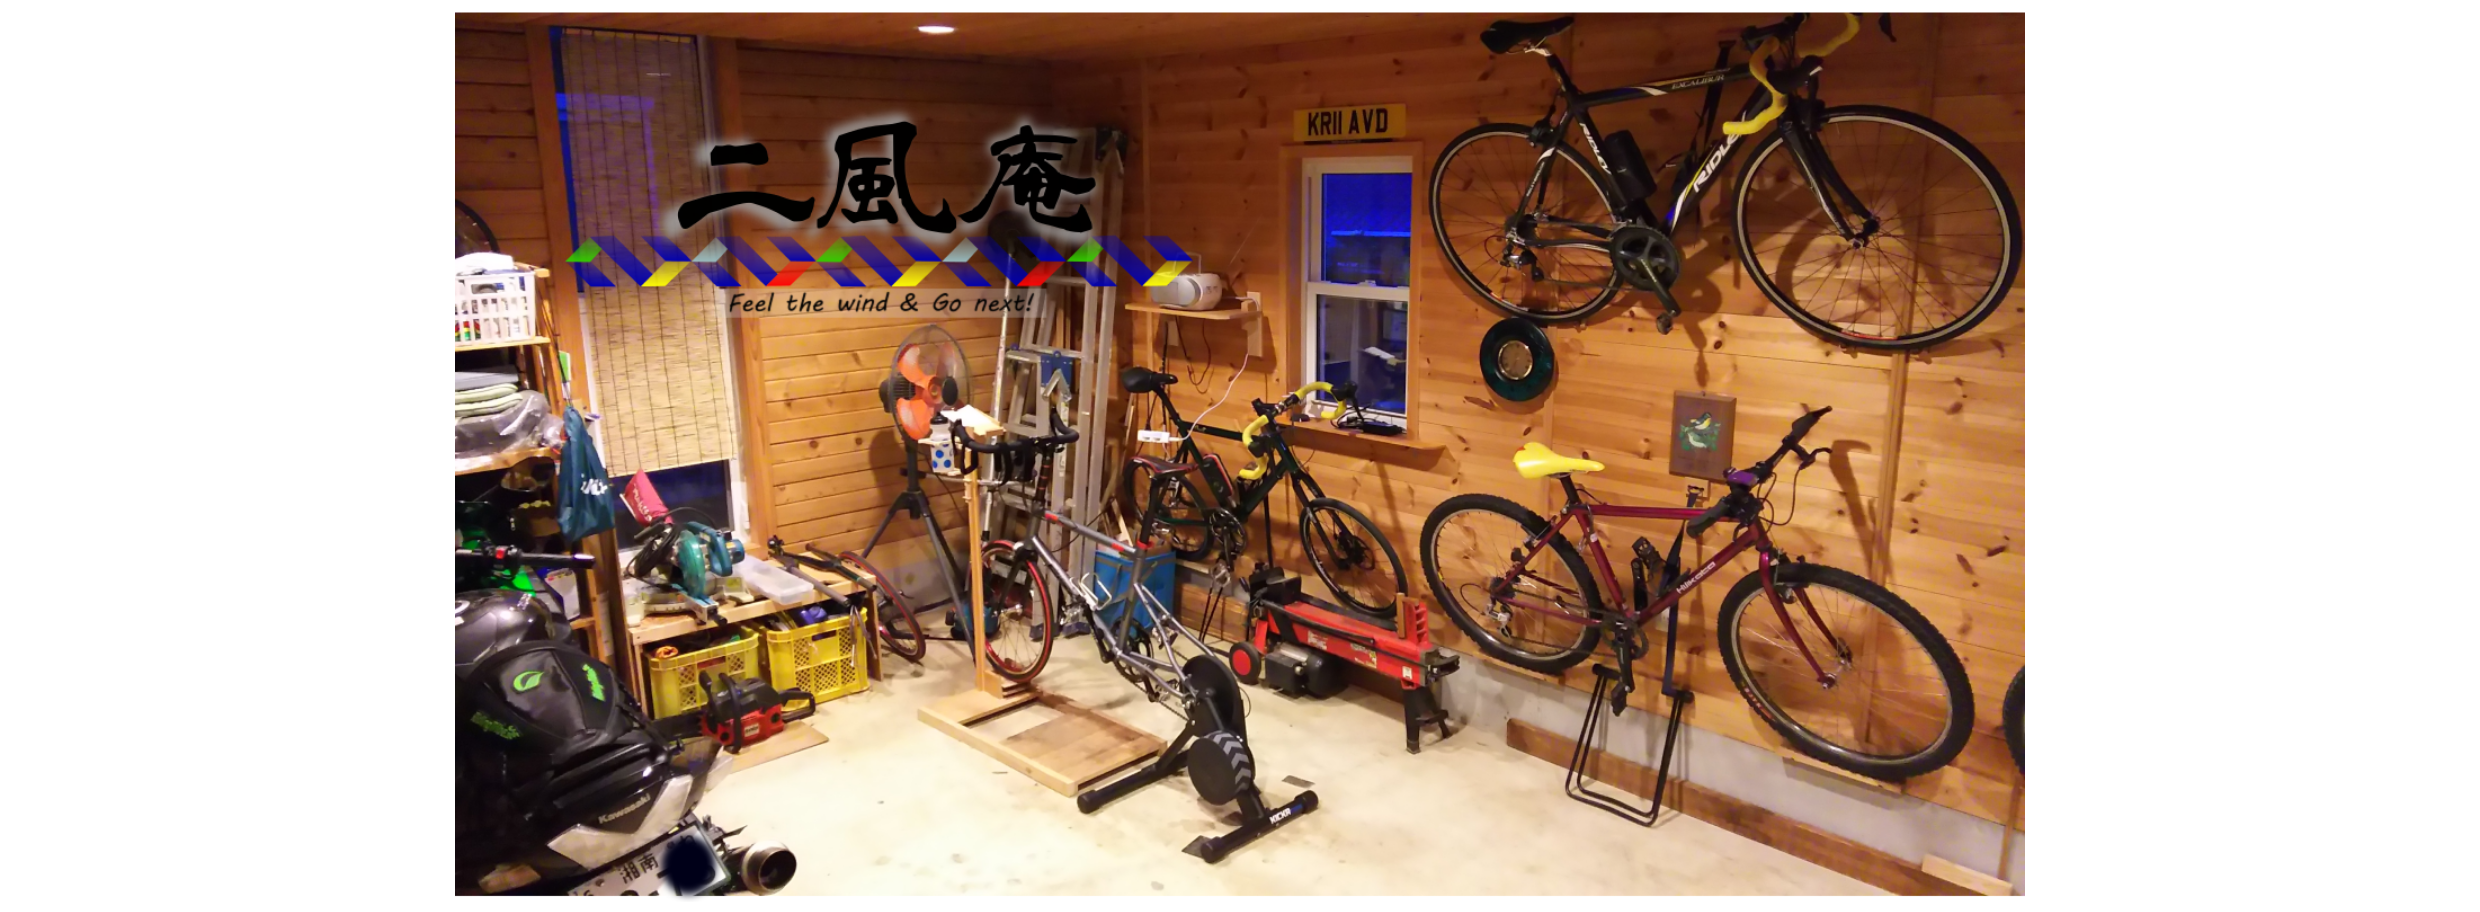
async function draw(canvas) {
  canvas.width = 2480;
  canvas.height = 912;
  const ctx = canvas.getContext('2d');
  ctx.miterLimit = 4;
  ctx.fontKerning = 'normal';
  function rect(x, y, w, h, color) {
    ctx.fillStyle = color;
    ctx.fillRect(x, y, w, h);
  }
  async function image(src, x, y, w, h) {
    const img = new Image();
    img.src = src;
    await img.decode();
    ctx.drawImage(img, x, y, w, h);
  }

  rect(0, 0, 2480, 912, '#fff');
  await image('assets/img1.png', 455, 12, 1570, 890);
}

draw(document.querySelector('canvas'));
